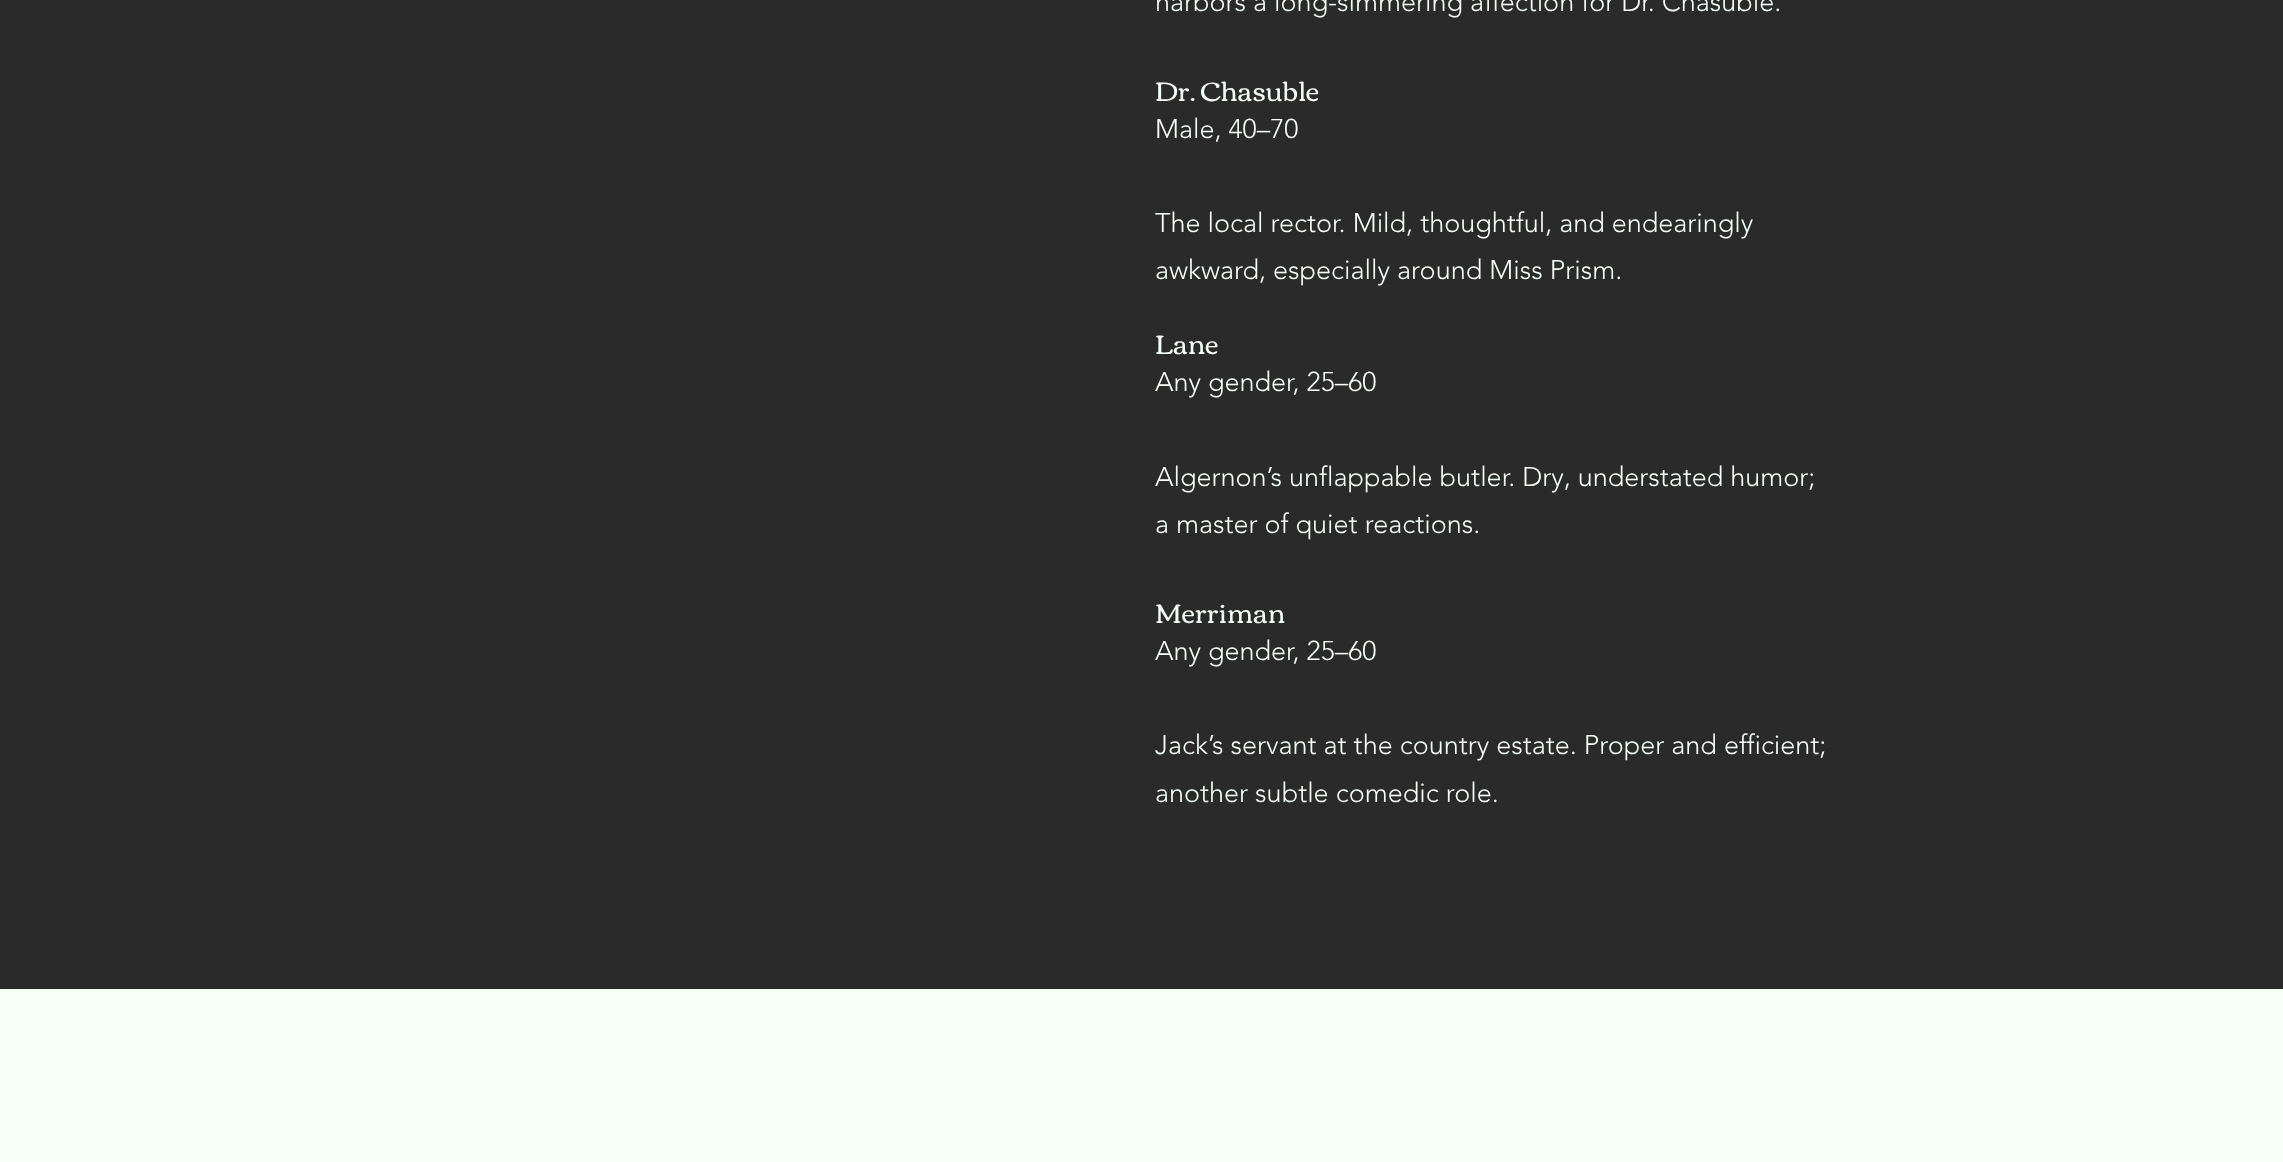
async function draw(canvas) {
  canvas.width = 2283;
  canvas.height = 1162;
  const ctx = canvas.getContext('2d');
  ctx.miterLimit = 4;
  ctx.fontKerning = 'normal';
  function label(s, x, y, font, color) {
    ctx.font = font;
    ctx.fillStyle = color;
    ctx.fillText(s, x, y);
  }
  function rect(x, y, w, h, color) {
    ctx.fillStyle = color;
    ctx.fillRect(x, y, w, h);
  }

  rect(0, 0, 2283, 1162, '#2a2a2a');
  label('harbors a long-simmering affection for Dr. Chasuble.', 1155, 11, '300 27px "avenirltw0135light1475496"', '#f5fff7');
  label('Dr. Chasuble', 1155, 101, '27px Corben', '#f5fff7');
  label('Male, 40–70', 1155, 138, '300 27px "avenirltw0135light1475496"', '#f5fff7');
  label('The local rector. Mild, thoughtful, and endearingly', 1155, 232, '300 27px "avenirltw0135light1475496"', '#f5fff7');
  label('awkward, especially around Miss Prism.', 1155, 279, '300 27px "avenirltw0135light1475496"', '#f5fff7');
  label('Lane', 1155, 354, '27px Corben', '#f5fff7');
  label('Any gender, 25–60', 1155, 391, '300 27px "avenirltw0135light1475496"', '#f5fff7');
  label('Algernon’s unflappable butler. Dry, understated humor;', 1155, 486, '300 27px "avenirltw0135light1475496"', '#f5fff7');
  label('a master of quiet reactions.', 1155, 533, '300 27px "avenirltw0135light1475496"', '#f5fff7');
  label('Merriman', 1155, 623, '27px Corben', '#f5fff7');
  label('Any gender, 25–60', 1155, 660, '300 27px "avenirltw0135light1475496"', '#f5fff7');
  label('Jack’s servant at the country estate. Proper and efficient;', 1155, 754, '300 27px "avenirltw0135light1475496"', '#f5fff7');
  label('another subtle comedic role.', 1155, 802, '300 27px "avenirltw0135light1475496"', '#f5fff7');
  rect(0, 989, 2283, 173, '#f5fff7');
}

draw(document.querySelector('canvas'));
